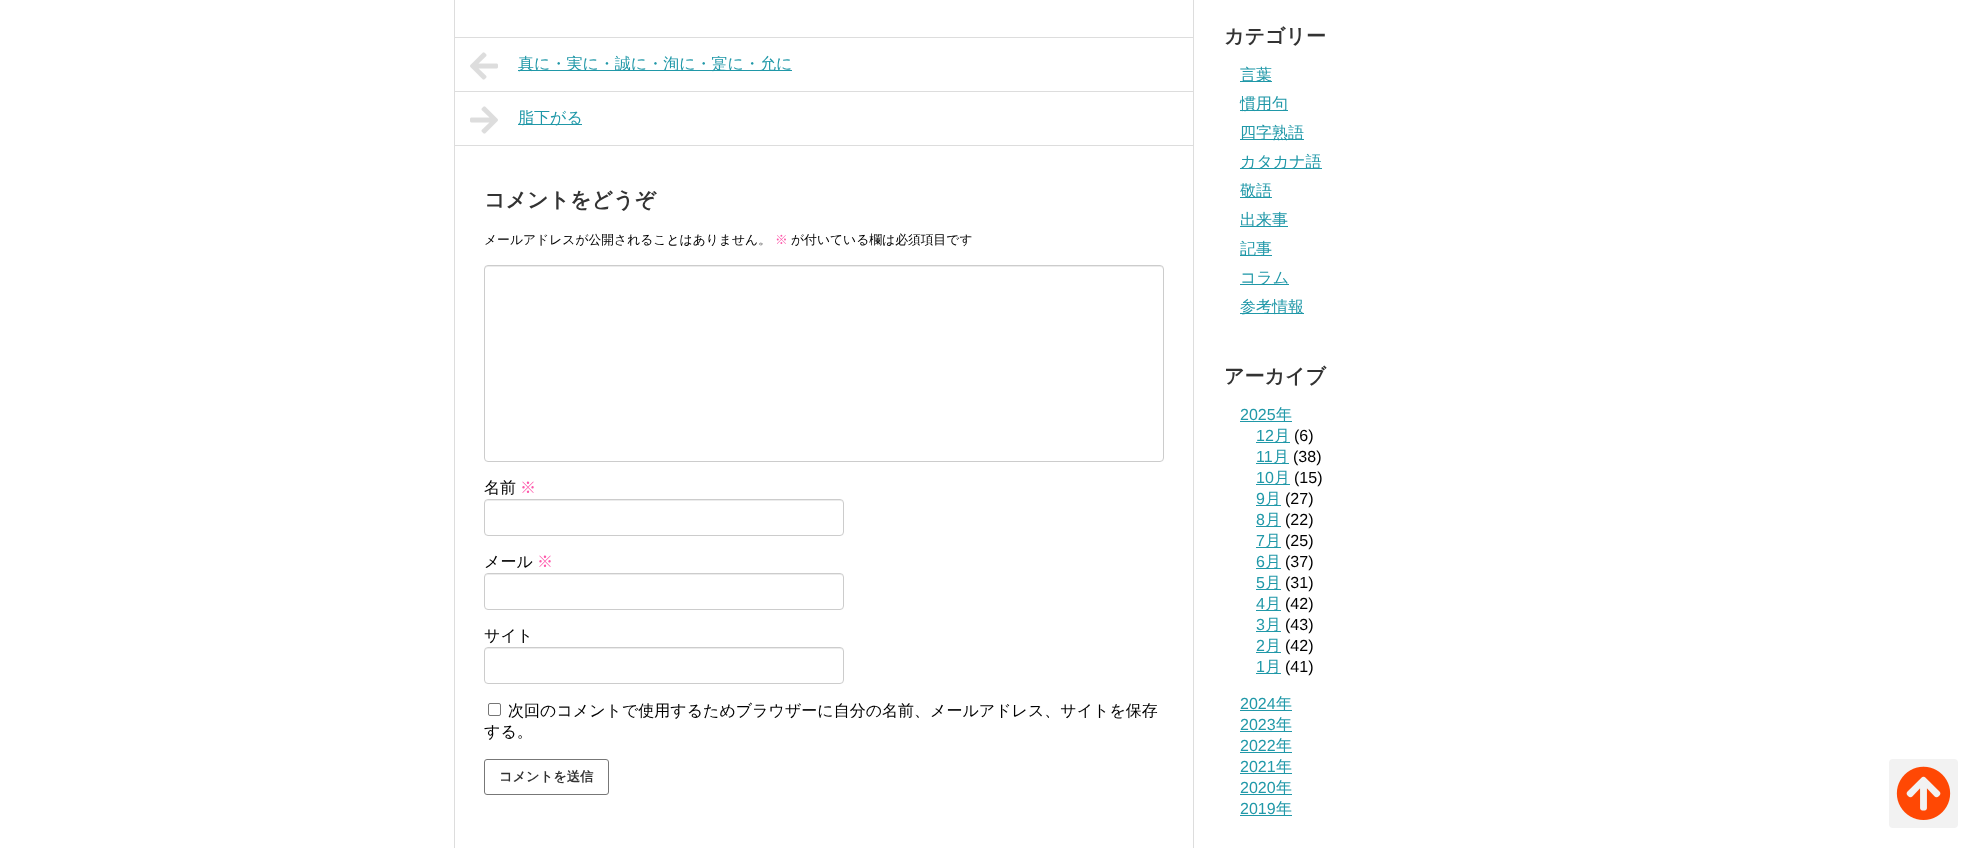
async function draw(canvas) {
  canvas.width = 1978;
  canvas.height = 848;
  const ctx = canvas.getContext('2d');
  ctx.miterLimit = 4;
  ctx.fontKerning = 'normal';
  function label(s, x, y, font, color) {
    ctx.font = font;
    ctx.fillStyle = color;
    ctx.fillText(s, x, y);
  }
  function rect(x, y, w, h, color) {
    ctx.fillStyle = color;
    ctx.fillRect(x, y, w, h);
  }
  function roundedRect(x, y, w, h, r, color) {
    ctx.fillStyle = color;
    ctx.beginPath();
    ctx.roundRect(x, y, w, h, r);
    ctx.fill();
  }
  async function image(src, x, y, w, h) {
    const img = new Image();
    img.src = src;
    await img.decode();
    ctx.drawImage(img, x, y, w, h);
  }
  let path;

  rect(0, 0, 1978, 848, '#fff');
  ctx.strokeStyle = '#ddd';
  ctx.strokeRect(454.5, -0.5, 739, 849);
  rect(454, 37, 740, 1, '#ddd');
  rect(454, 91, 740, 1, '#ddd');
  await image('assets/img1.png', 470, 52, 28, 28);
  rect(518, 70, 274, 1, '#2098a8');
  label('真に・実に・誠に・洵に・寔に・允に', 518, 69, '500 16px WenQuanYi Zen Hei', '#2098a8');
  rect(454, 145, 740, 1, '#ddd');
  await image('assets/img2.png', 470, 106, 28, 28);
  rect(518, 124, 64, 1, '#2098a8');
  label('脂下がる', 518, 123, '500 16px WenQuanYi Zen Hei', '#2098a8');
  label('コメントをどうぞ', 484, 207, 'bold 21px WenQuanYi Zen Hei', '#333');
  label('メールアドレスが公開されることはありません。', 484, 244, '500 12.8px WenQuanYi Zen Hei', '#000');
  label('※', 775, 244, '500 12.8px WenQuanYi Zen Hei', '#fe56aa');
  label('が付いている欄は必須項目です', 791, 244, '500 12.8px WenQuanYi Zen Hei', '#000');
  ctx.fillStyle = '#ececec';
  path = new Path2D('M488 267H1160C1162 267 1163 268 1163 270V269C1163 267 1162 266 1160 266H488C486 266 485 267 485 269V270C485 268 486 267 488 267Z');
  ctx.fill(path);
  ctx.beginPath();
  ctx.roundRect(484.5, 265.5, 679, 196, 3.5);
  ctx.strokeStyle = '#ccc';
  ctx.stroke();
  label('名前', 484, 493, '500 16px WenQuanYi Zen Hei', '#000');
  label('※', 520, 493, '500 16px WenQuanYi Zen Hei', '#fe56aa');
  ctx.fillStyle = '#ececec';
  path = new Path2D('M488 501H840C842 501 843 502 843 504C843 502 842 500 840 500H488L486 501L485 504C485 502 486 501 488 501Z');
  ctx.fill(path);
  ctx.beginPath();
  ctx.roundRect(484.5, 499.5, 359, 36, 3.5);
  ctx.stroke();
  label('メール', 484, 567, '500 16px WenQuanYi Zen Hei', '#000');
  label('※', 537, 567, '500 16px WenQuanYi Zen Hei', '#fe56aa');
  ctx.fillStyle = '#ececec';
  path = new Path2D('M488 575H840C842 575 843 576 843 578C843 576 842 574 840 574H488L486 575L485 578C485 576 486 575 488 575Z');
  ctx.fill(path);
  ctx.beginPath();
  ctx.roundRect(484.5, 573.5, 359, 36, 3.5);
  ctx.stroke();
  label('サイト', 484, 641, '500 16px WenQuanYi Zen Hei', '#000');
  ctx.fillStyle = '#ececec';
  path = new Path2D('M488 649H840C842 649 843 650 843 652C843 650 842 648 840 648H488L486 649L485 652C485 650 486 649 488 649Z');
  ctx.fill(path);
  ctx.beginPath();
  ctx.roundRect(484.5, 647.5, 359, 36, 3.5);
  ctx.stroke();
  ctx.beginPath();
  ctx.roundRect(488.5, 703.5, 12, 12, 1.5);
  ctx.strokeStyle = '#767676';
  ctx.stroke();
  label('次回のコメントで使用するためブラウザーに自分の名前、メールアドレス、サイトを保存', 508, 716, '500 16px WenQuanYi Zen Hei', '#000');
  label('する。', 484, 737, '500 16px WenQuanYi Zen Hei', '#000');
  ctx.beginPath();
  ctx.roundRect(484.5, 759.5, 124, 35, 2.5);
  ctx.strokeStyle = '#777';
  ctx.stroke();
  label('コメントを送信', 499, 781, 'bold 13.25px WenQuanYi Zen Hei', '#333');
  label('カテゴリー', 1224, 43, 'bold 20px WenQuanYi Zen Hei', '#333');
  rect(1240, 81, 32, 1, '#2098a8');
  label('言葉', 1240, 80, '500 16px WenQuanYi Zen Hei', '#2098a8');
  rect(1240, 110, 48, 1, '#2098a8');
  label('慣用句', 1240, 109, '500 16px WenQuanYi Zen Hei', '#2098a8');
  rect(1240, 139, 64, 1, '#2098a8');
  label('四字熟語', 1240, 138, '500 16px WenQuanYi Zen Hei', '#2098a8');
  rect(1240, 168, 82, 1, '#2098a8');
  label('カタカナ語', 1240, 167, '500 16px WenQuanYi Zen Hei', '#2098a8');
  rect(1240, 197, 32, 1, '#2098a8');
  label('敬語', 1240, 196, '500 16px WenQuanYi Zen Hei', '#2098a8');
  rect(1240, 226, 48, 1, '#2098a8');
  label('出来事', 1240, 225, '500 16px WenQuanYi Zen Hei', '#2098a8');
  rect(1240, 255, 32, 1, '#2098a8');
  label('記事', 1240, 254, '500 16px WenQuanYi Zen Hei', '#2098a8');
  rect(1240, 284, 49, 1, '#2098a8');
  label('コラム', 1240, 283, '500 16px WenQuanYi Zen Hei', '#2098a8');
  rect(1240, 313, 64, 1, '#2098a8');
  label('参考情報', 1240, 312, '500 16px WenQuanYi Zen Hei', '#2098a8');
  label('アーカイブ', 1224, 383, 'bold 20px WenQuanYi Zen Hei', '#333');
  label('2025', 1240, 420, '16px Liberation Sans', '#2098a8');
  rect(1240, 421, 52, 1, '#2098a8');
  label('年', 1276, 420, '500 16px WenQuanYi Zen Hei', '#2098a8');
  label('12', 1256, 441, '16px Liberation Sans', '#2098a8');
  rect(1256, 442, 34, 1, '#2098a8');
  label('月', 1274, 441, '500 16px WenQuanYi Zen Hei', '#2098a8');
  label('(6)', 1294, 441, '16px Liberation Sans', '#000');
  label('11', 1256, 462, '16px Liberation Sans', '#2098a8');
  rect(1256, 463, 33, 1, '#2098a8');
  label('月', 1273, 462, '500 16px WenQuanYi Zen Hei', '#2098a8');
  label('(38)', 1293, 462, '16px Liberation Sans', '#000');
  label('10', 1256, 483, '16px Liberation Sans', '#2098a8');
  rect(1256, 484, 34, 1, '#2098a8');
  label('月', 1274, 483, '500 16px WenQuanYi Zen Hei', '#2098a8');
  label('(15)', 1294, 483, '16px Liberation Sans', '#000');
  label('9', 1256, 504, '16px Liberation Sans', '#2098a8');
  rect(1256, 505, 25, 1, '#2098a8');
  label('月', 1265, 504, '500 16px WenQuanYi Zen Hei', '#2098a8');
  label('(27)', 1285, 504, '16px Liberation Sans', '#000');
  label('8', 1256, 525, '16px Liberation Sans', '#2098a8');
  rect(1256, 526, 25, 1, '#2098a8');
  label('月', 1265, 525, '500 16px WenQuanYi Zen Hei', '#2098a8');
  label('(22)', 1285, 525, '16px Liberation Sans', '#000');
  label('7', 1256, 546, '16px Liberation Sans', '#2098a8');
  rect(1256, 547, 25, 1, '#2098a8');
  label('月', 1265, 546, '500 16px WenQuanYi Zen Hei', '#2098a8');
  label('(25)', 1285, 546, '16px Liberation Sans', '#000');
  label('6', 1256, 567, '16px Liberation Sans', '#2098a8');
  rect(1256, 568, 25, 1, '#2098a8');
  label('月', 1265, 567, '500 16px WenQuanYi Zen Hei', '#2098a8');
  label('(37)', 1285, 567, '16px Liberation Sans', '#000');
  label('5', 1256, 588, '16px Liberation Sans', '#2098a8');
  rect(1256, 589, 25, 1, '#2098a8');
  label('月', 1265, 588, '500 16px WenQuanYi Zen Hei', '#2098a8');
  label('(31)', 1285, 588, '16px Liberation Sans', '#000');
  label('4', 1256, 609, '16px Liberation Sans', '#2098a8');
  rect(1256, 610, 25, 1, '#2098a8');
  label('月', 1265, 609, '500 16px WenQuanYi Zen Hei', '#2098a8');
  label('(42)', 1285, 609, '16px Liberation Sans', '#000');
  label('3', 1256, 630, '16px Liberation Sans', '#2098a8');
  rect(1256, 631, 25, 1, '#2098a8');
  label('月', 1265, 630, '500 16px WenQuanYi Zen Hei', '#2098a8');
  label('(43)', 1285, 630, '16px Liberation Sans', '#000');
  label('2', 1256, 651, '16px Liberation Sans', '#2098a8');
  rect(1256, 652, 25, 1, '#2098a8');
  label('月', 1265, 651, '500 16px WenQuanYi Zen Hei', '#2098a8');
  label('(42)', 1285, 651, '16px Liberation Sans', '#000');
  label('1', 1256, 672, '16px Liberation Sans', '#2098a8');
  rect(1256, 673, 25, 1, '#2098a8');
  label('月', 1265, 672, '500 16px WenQuanYi Zen Hei', '#2098a8');
  label('(41)', 1285, 672, '16px Liberation Sans', '#000');
  label('2024', 1240, 709, '16px Liberation Sans', '#2098a8');
  rect(1240, 710, 52, 1, '#2098a8');
  label('年', 1276, 709, '500 16px WenQuanYi Zen Hei', '#2098a8');
  label('2023', 1240, 730, '16px Liberation Sans', '#2098a8');
  rect(1240, 731, 52, 1, '#2098a8');
  label('年', 1276, 730, '500 16px WenQuanYi Zen Hei', '#2098a8');
  label('2022', 1240, 751, '16px Liberation Sans', '#2098a8');
  rect(1240, 752, 52, 1, '#2098a8');
  label('年', 1276, 751, '500 16px WenQuanYi Zen Hei', '#2098a8');
  label('2021', 1240, 772, '16px Liberation Sans', '#2098a8');
  rect(1240, 773, 52, 1, '#2098a8');
  label('年', 1276, 772, '500 16px WenQuanYi Zen Hei', '#2098a8');
  label('2020', 1240, 793, '16px Liberation Sans', '#2098a8');
  rect(1240, 794, 52, 1, '#2098a8');
  label('年', 1276, 793, '500 16px WenQuanYi Zen Hei', '#2098a8');
  label('2019', 1240, 814, '16px Liberation Sans', '#2098a8');
  rect(1240, 815, 52, 1, '#2098a8');
  label('年', 1276, 814, '500 16px WenQuanYi Zen Hei', '#2098a8');
  roundedRect(1889, 759, 69, 69, 4, '#f2f2f2');
  await image('assets/img3.png', 1896, 766, 55, 54);
}

draw(document.querySelector('canvas'));
